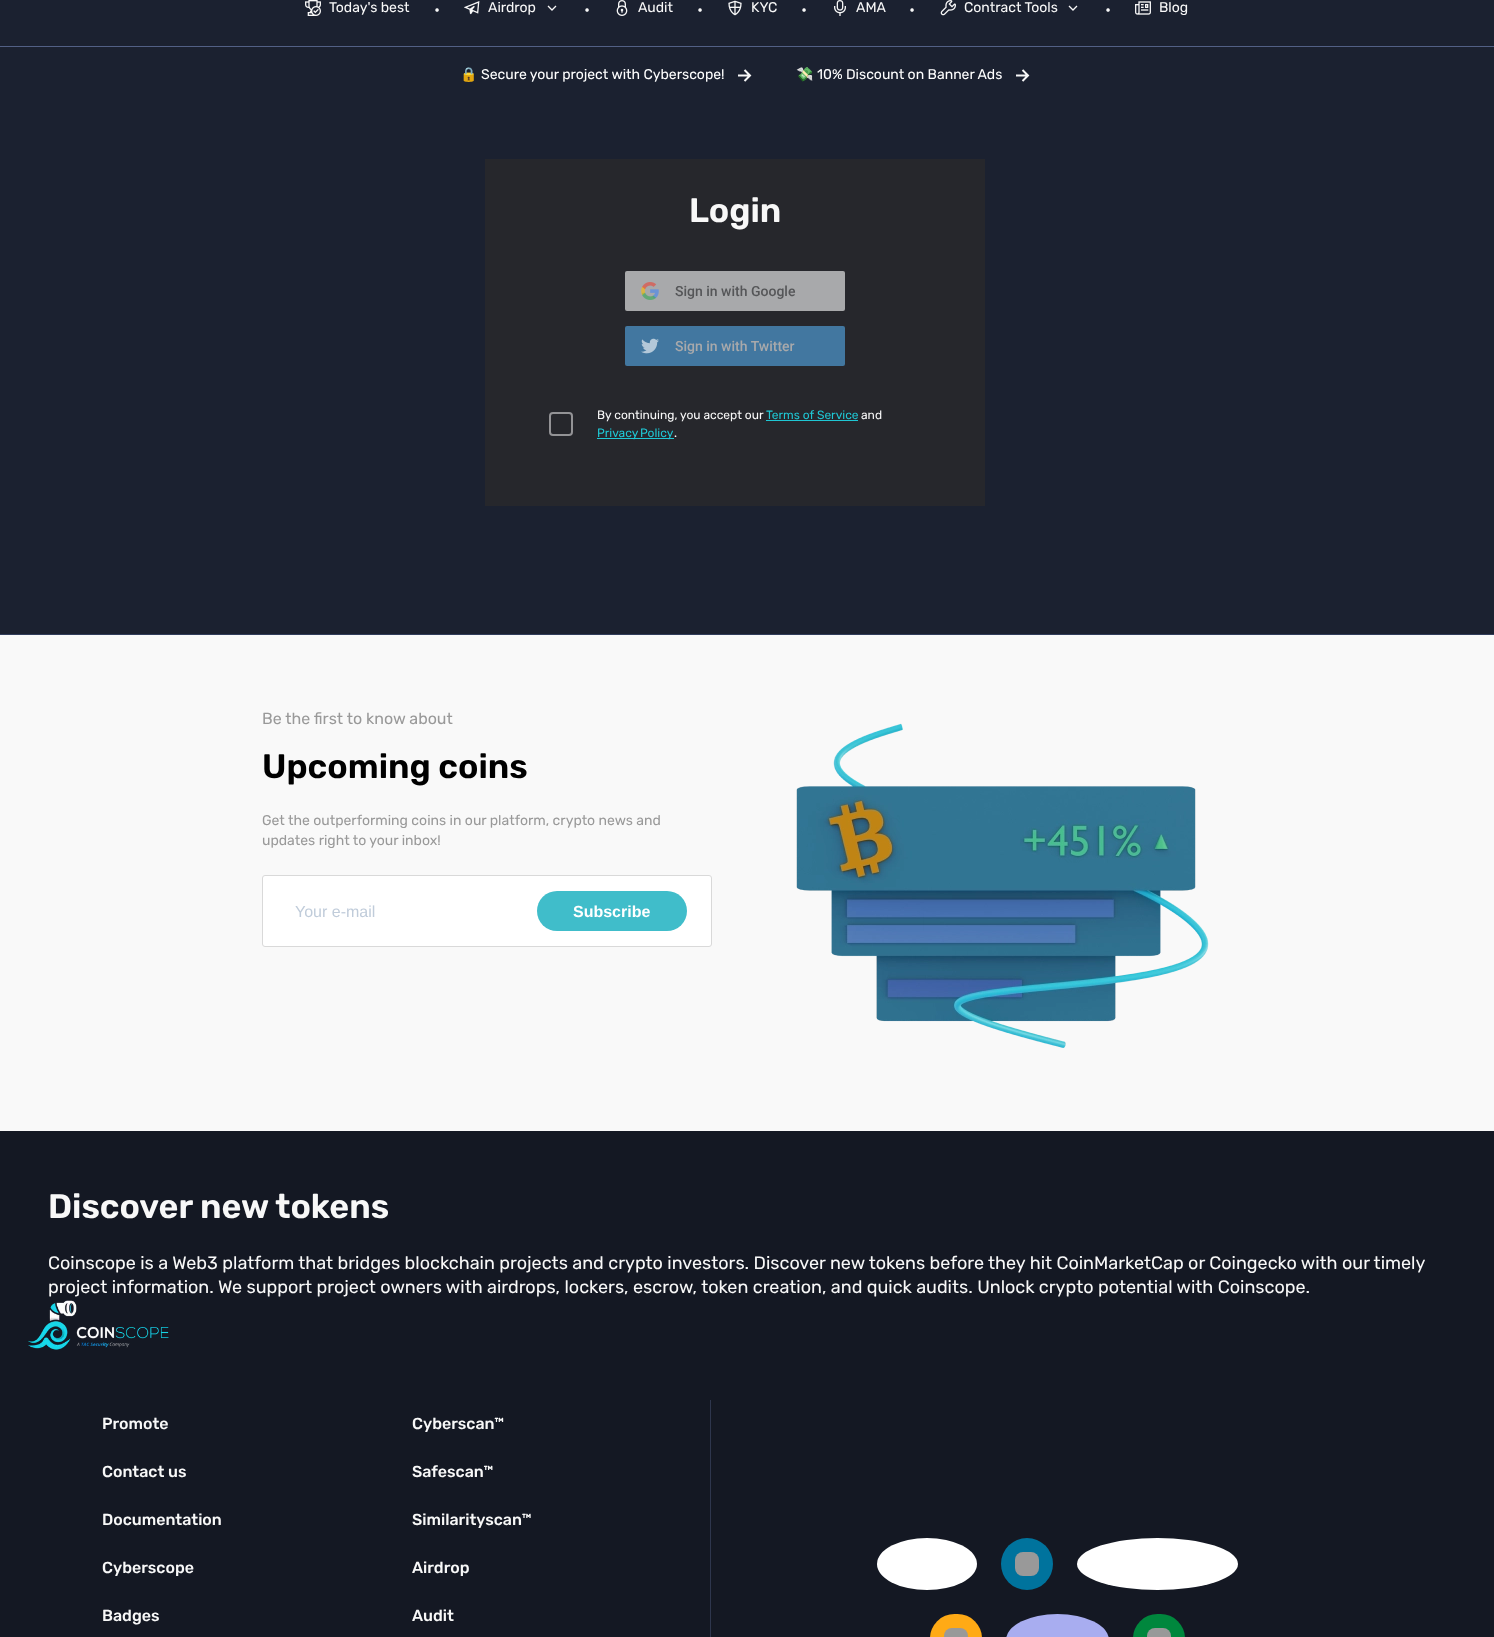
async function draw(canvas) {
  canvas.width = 1494;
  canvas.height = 1637;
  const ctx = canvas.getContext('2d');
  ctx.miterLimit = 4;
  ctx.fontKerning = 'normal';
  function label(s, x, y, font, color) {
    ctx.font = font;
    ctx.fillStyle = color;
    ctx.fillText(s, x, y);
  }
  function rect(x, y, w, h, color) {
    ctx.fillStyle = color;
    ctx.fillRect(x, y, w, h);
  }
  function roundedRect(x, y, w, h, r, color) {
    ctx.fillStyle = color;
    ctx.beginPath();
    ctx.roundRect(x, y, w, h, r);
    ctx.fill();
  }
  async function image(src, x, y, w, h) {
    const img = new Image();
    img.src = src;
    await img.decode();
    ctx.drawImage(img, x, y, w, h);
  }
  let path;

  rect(0, 0, 1494, 1637, '#1b2130');
  rect(0, 46, 1494, 1, '#526085');
  await image('assets/img1.png', 305, 0, 16, 16);
  label('Today\'s best', 329, 12, '14px Rubik', '#f8f8f8');
  label('•', 434, 15, '16px Rubik', '#f8f8f8');
  await image('assets/img2.png', 464, 1, 16, 14);
  label('Airdrop', 488, 12, '14px Rubik', '#f8f8f8');
  path = new Path2D('M556 6L552 10L548 6');
  ctx.strokeStyle = '#f8f8f8';
  ctx.lineWidth = 1.3;
  ctx.stroke(path);
  label('•', 584, 15, '16px Rubik', '#f8f8f8');
  await image('assets/img3.png', 616, 0, 12, 16);
  label('Audit', 638, 12, '14px Rubik', '#f8f8f8');
  label('•', 697, 15, '16px Rubik', '#f8f8f8');
  await image('assets/img4.png', 728, 0, 14, 16);
  label('KYC', 751, 12, '14px Rubik', '#f8f8f8');
  label('•', 801, 15, '16px Rubik', '#f8f8f8');
  await image('assets/img5.png', 834, 0, 12, 16);
  label('AMA', 856, 12, '14px Rubik', '#f8f8f8');
  label('•', 909, 15, '16px Rubik', '#f8f8f8');
  await image('assets/img6.png', 940, 0, 16, 16);
  label('Contract Tools', 964, 12, '14px Rubik', '#f8f8f8');
  path = new Path2D('M1077 6L1073 10L1069 6');
  ctx.stroke(path);
  label('•', 1105, 15, '16px Rubik', '#f8f8f8');
  await image('assets/img7.png', 1135, 1, 16, 14);
  label('Blog', 1159, 12, '14px Rubik', '#f8f8f8');
  label('🔒', 460, 79, '14px Noto Color Emoji', '#fff');
  label('Secure your project with Cyberscope!', 481, 79, '14px Rubik', '#fff');
  path = new Path2D('M738 75.5H750M744.5 70L750 75.5L744.5 81');
  ctx.lineWidth = 2;
  ctx.stroke(path);
  label('💸', 796, 79, '14px Noto Color Emoji', '#fff');
  label('10% Discount on Banner Ads', 817, 79, '14px Rubik', '#fff');
  path = new Path2D('M1016 75.5H1028M1022.5 70L1028 75.5L1022.5 81');
  ctx.stroke(path);
  rect(485, 159, 500, 347, '#26272c');
  label('Login', 689, 222, '600 34px Rubik', '#f8f8f8');
  roundedRect(625, 271, 220, 40, 2, '#a8a9ab');
  await image('assets/img8.png', 641, 282, 18, 18);
  label('Sign in with Google', 675, 296, '500 14px Roboto', '#555658');
  roundedRect(625, 326, 220, 40, 2, '#4277a0');
  await image('assets/img9.png', 641, 338, 18, 16);
  label('Sign in with Twitter', 675, 351, '500 14px Roboto', '#a8a9ab');
  ctx.beginPath();
  ctx.roundRect(550, 413, 22, 22, 3);
  ctx.strokeStyle = '#939396';
  ctx.stroke();
  label('By continuing, you accept our', 597, 419, '12px Rubik', '#f8f8f8');
  label('Terms of Service', 766, 419, '12px Rubik', '#1fc7d4');
  rect(766, 420, 92, 1, '#1fc7d4');
  label('and', 861, 419, '12px Rubik', '#f8f8f8');
  rect(597, 438, 77, 1, '#1fc7d4');
  ctx.wordSpacing = '-1px';
  label('Privacy Policy', 597, 437, '12px Rubik', '#1fc7d4');
  ctx.wordSpacing = '0px';
  label('.', 674, 437, '12px Rubik', '#f8f8f8');
  rect(0, 1131, 1494, 506, '#141823');
  rect(0, 635, 1494, 496, '#f9f9f9');
  rect(0, 634, 1494, 1, '#313d5b');
  label('Be the first to know about', 262, 724, '16px Rubik', '#999');
  label('Upcoming coins', 262, 778, '600 34px Rubik', '#000');
  label('Get the outperforming coins in our platform, crypto news and', 262, 825, '14px Rubik', '#999');
  label('updates right to your inbox!', 262, 845, '14px Rubik', '#999');
  ctx.fillStyle = '#fff';
  ctx.beginPath();
  ctx.roundRect(262.5, 875.5, 449, 71, 2.5);
  ctx.fill();
  ctx.strokeStyle = '#d9d9d9';
  ctx.lineWidth = 1;
  ctx.stroke();
  label('Your e-mail', 295, 917, '16px Liberation Sans', '#c0ccda');
  roundedRect(537, 891, 150, 40, 20, '#40bdca');
  label('Subscribe', 573, 917, 'bold 16px Liberation Sans', '#fff');
  await image('assets/img10.png', 796, 723, 413, 325);
  label('Discover new tokens', 48, 1218, '600 34px Rubik', '#f8f8f8');
  label('Coinscope is a Web3 platform that bridges blockchain projects and crypto investors. Discover new tokens before they hit CoinMarketCap or Coingecko with our timely', 48, 1269, '18px Rubik', '#f8f8f8');
  label('project information. We support project owners with airdrops, lockers, escrow, token creation, and quick audits. Unlock crypto potential with Coinscope.', 48, 1293, '18px Rubik', '#f8f8f8');
  await image('assets/img11.png', 28, 1300, 141, 50);
  label('Promote', 102, 1429, '500 16px Rubik', '#f8f8f8');
  label('Contact us', 102, 1477, '500 16px Rubik', '#f8f8f8');
  label('Documentation', 102, 1525, '500 16px Rubik', '#f8f8f8');
  label('Cyberscope', 102, 1573, '500 16px Rubik', '#f8f8f8');
  label('Badges', 102, 1621, '500 16px Rubik', '#f8f8f8');
  label('Cyberscan™', 412, 1429, '500 16px Rubik', '#f8f8f8');
  label('Safescan™', 412, 1477, '500 16px Rubik', '#f8f8f8');
  label('Similarityscan™', 412, 1525, '500 16px Rubik', '#f8f8f8');
  label('Airdrop', 412, 1573, '500 16px Rubik', '#f8f8f8');
  label('Audit', 412, 1621, '500 16px Rubik', '#f8f8f8');
  rect(710, 1400, 1, 237, '#2e364d');
  ctx.fillStyle = '#fff';
  ctx.beginPath();
  ctx.ellipse(927, 1564, 50, 26, 0, 0, 2 * Math.PI);
  ctx.fill();
  ctx.fillStyle = '#00739d';
  ctx.beginPath();
  ctx.arc(1027, 1564, 26, 0, 2 * Math.PI);
  ctx.fill();
  roundedRect(1015, 1552, 24, 24, 8, '#999');
  ctx.fillStyle = '#fff';
  ctx.beginPath();
  ctx.ellipse(1157.5, 1564, 80.5, 26, 0, 0, 2 * Math.PI);
  ctx.fill();
  roundedRect(930, 1614, 52, 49, 26, '#ffaa15');
  roundedRect(944, 1628, 24, 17, 8, '#999');
  ctx.fillStyle = '#a8adf0';
  ctx.beginPath();
  ctx.ellipse(1057.5, 1640, 51.5, 26, 0, 0, 2 * Math.PI);
  ctx.fill();
  roundedRect(1133, 1614, 52, 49, 26, '#00873d');
  roundedRect(1147, 1628, 24, 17, 8, '#999');
}

draw(document.querySelector('canvas'));
